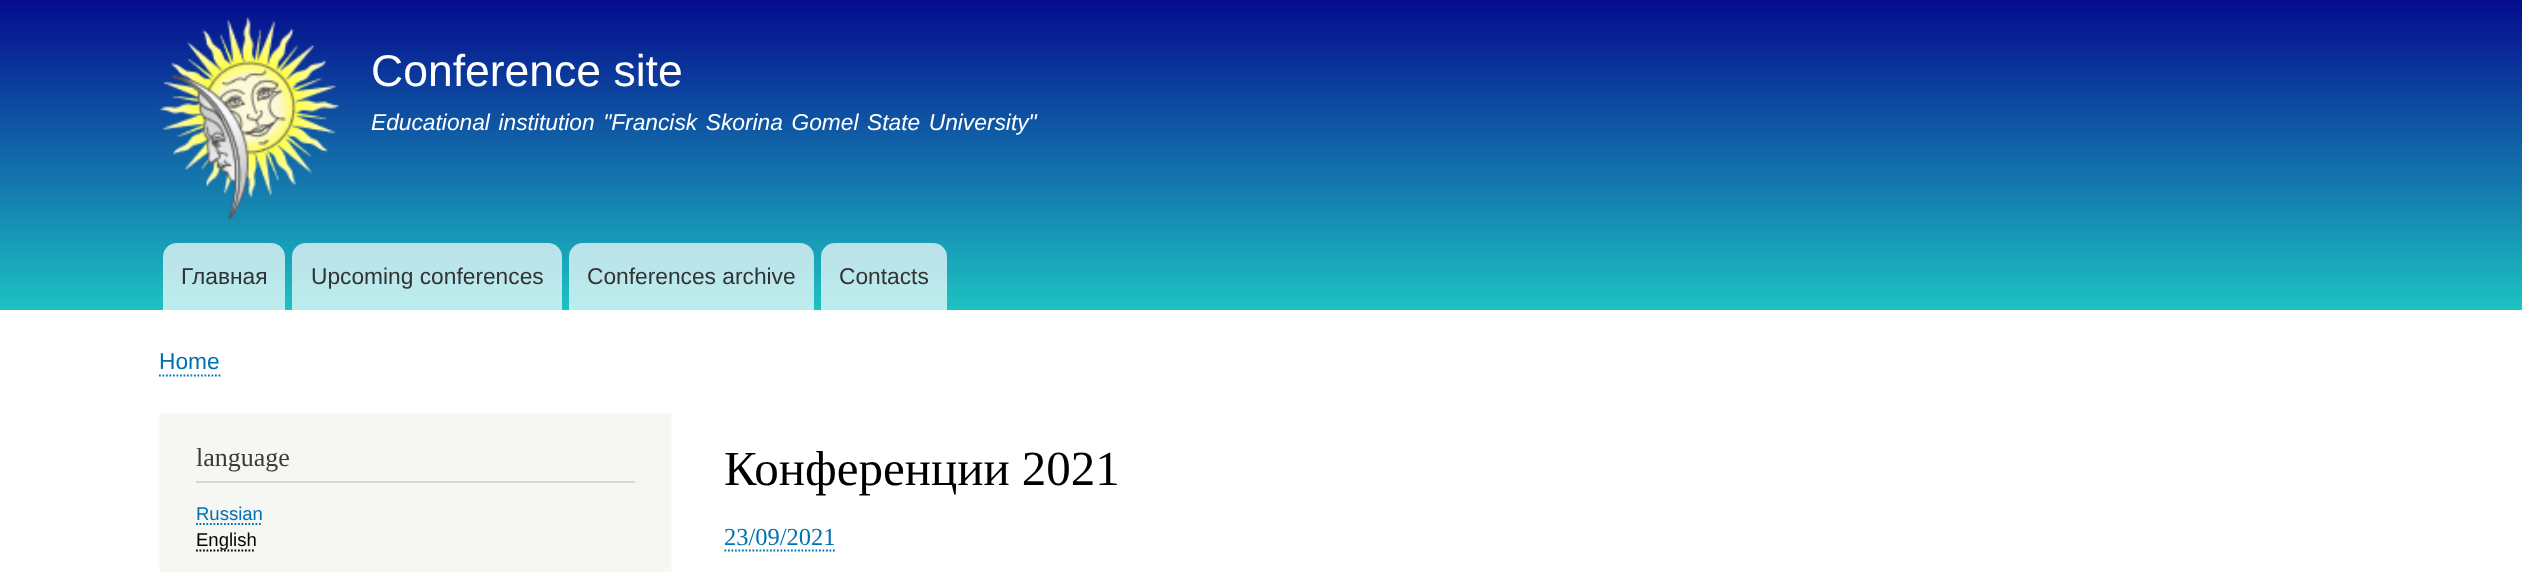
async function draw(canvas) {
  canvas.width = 2522;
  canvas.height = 572;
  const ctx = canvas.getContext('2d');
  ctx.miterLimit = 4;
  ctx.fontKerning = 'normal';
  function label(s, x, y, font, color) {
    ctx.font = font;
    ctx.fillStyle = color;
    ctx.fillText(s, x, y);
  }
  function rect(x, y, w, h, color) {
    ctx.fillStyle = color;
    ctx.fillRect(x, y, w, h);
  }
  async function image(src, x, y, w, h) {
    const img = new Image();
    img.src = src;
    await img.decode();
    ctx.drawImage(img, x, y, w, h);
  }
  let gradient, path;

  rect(0, 0, 2522, 572, '#fff');
  gradient = ctx.createLinearGradient(1262, 0, 1262, 310);
  gradient.addColorStop(0, '#050c8e');
  gradient.addColorStop(1, '#1dc3c2');
  ctx.fillStyle = gradient;
  ctx.fillRect(0, 0, 2522, 310);
  await image('assets/img1.png', 159, 17, 181, 202);
  label('Conference site', 371, 86, '44.5px Liberation Sans', '#fffeff');
  ctx.wordSpacing = '2.25px';
  label('Educational institution "Francisk Skorina Gomel State University"', 371, 130, 'italic 22.75px Liberation Sans', '#fffeff');
  ctx.fillStyle = '#ffffffb3';
  ctx.beginPath();
  ctx.roundRect(163, 243, 122, 67, [14, 14, 0, 0]);
  ctx.fill();
  ctx.wordSpacing = '0px';
  label('Главная', 181, 284, '22.75px Liberation Sans', '#333');
  ctx.fillStyle = '#ffffffb3';
  ctx.beginPath();
  ctx.roundRect(292, 243, 270, 67, [14, 14, 0, 0]);
  ctx.fill();
  label('Upcoming conferences', 311, 284, '22.75px Liberation Sans', '#333');
  ctx.fillStyle = '#ffffffb3';
  ctx.beginPath();
  ctx.roundRect(569, 243, 245, 67, [14, 14, 0, 0]);
  ctx.fill();
  label('Conferences archive', 587, 284, '22.75px Liberation Sans', '#333');
  ctx.fillStyle = '#ffffffb3';
  ctx.beginPath();
  ctx.roundRect(821, 243, 126, 67, [14, 14, 0, 0]);
  ctx.fill();
  label('Contacts', 839, 284, '22.75px Liberation Sans', '#333');
  label('Home', 159, 369, '22.75px Liberation Sans', '#0071b3');
  path = new Path2D('M159 375.5H220.5');
  ctx.strokeStyle = '#0071b3';
  ctx.lineWidth = 1.8;
  ctx.setLineDash([1.75, 1.75]);
  ctx.stroke(path);
  ctx.fillStyle = '#f6f6f2';
  ctx.beginPath();
  ctx.rect(160, 414, 511, 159);
  ctx.fill();
  ctx.strokeStyle = '#f9f9f9';
  ctx.lineWidth = 2;
  ctx.setLineDash([]);
  ctx.stroke();
  rect(196, 481, 439, 2, '#d6d6d6');
  label('language', 196, 466, '26px Liberation Serif', '#3b3b3b');
  label('Russian', 196, 520, '18.5px Liberation Sans', '#0071b3');
  path = new Path2D('M196 524H262.5');
  ctx.strokeStyle = '#0071b3';
  ctx.lineWidth = 1.8;
  ctx.setLineDash([1.75, 1.75]);
  ctx.stroke(path);
  path = new Path2D('M196 550.5H255.5');
  ctx.strokeStyle = '#000';
  ctx.stroke(path);
  label('English', 196, 546, '18.5px Liberation Sans', '#000');
  label('Конференции 2021', 724, 485, '49px Liberation Serif', '#000');
  label('23/09/2021', 724, 545, '24.5px Liberation Serif', '#0071b3');
  path = new Path2D('M724.5 550.5H835');
  ctx.strokeStyle = '#0071b3';
  ctx.stroke(path);
}

draw(document.querySelector('canvas'));
